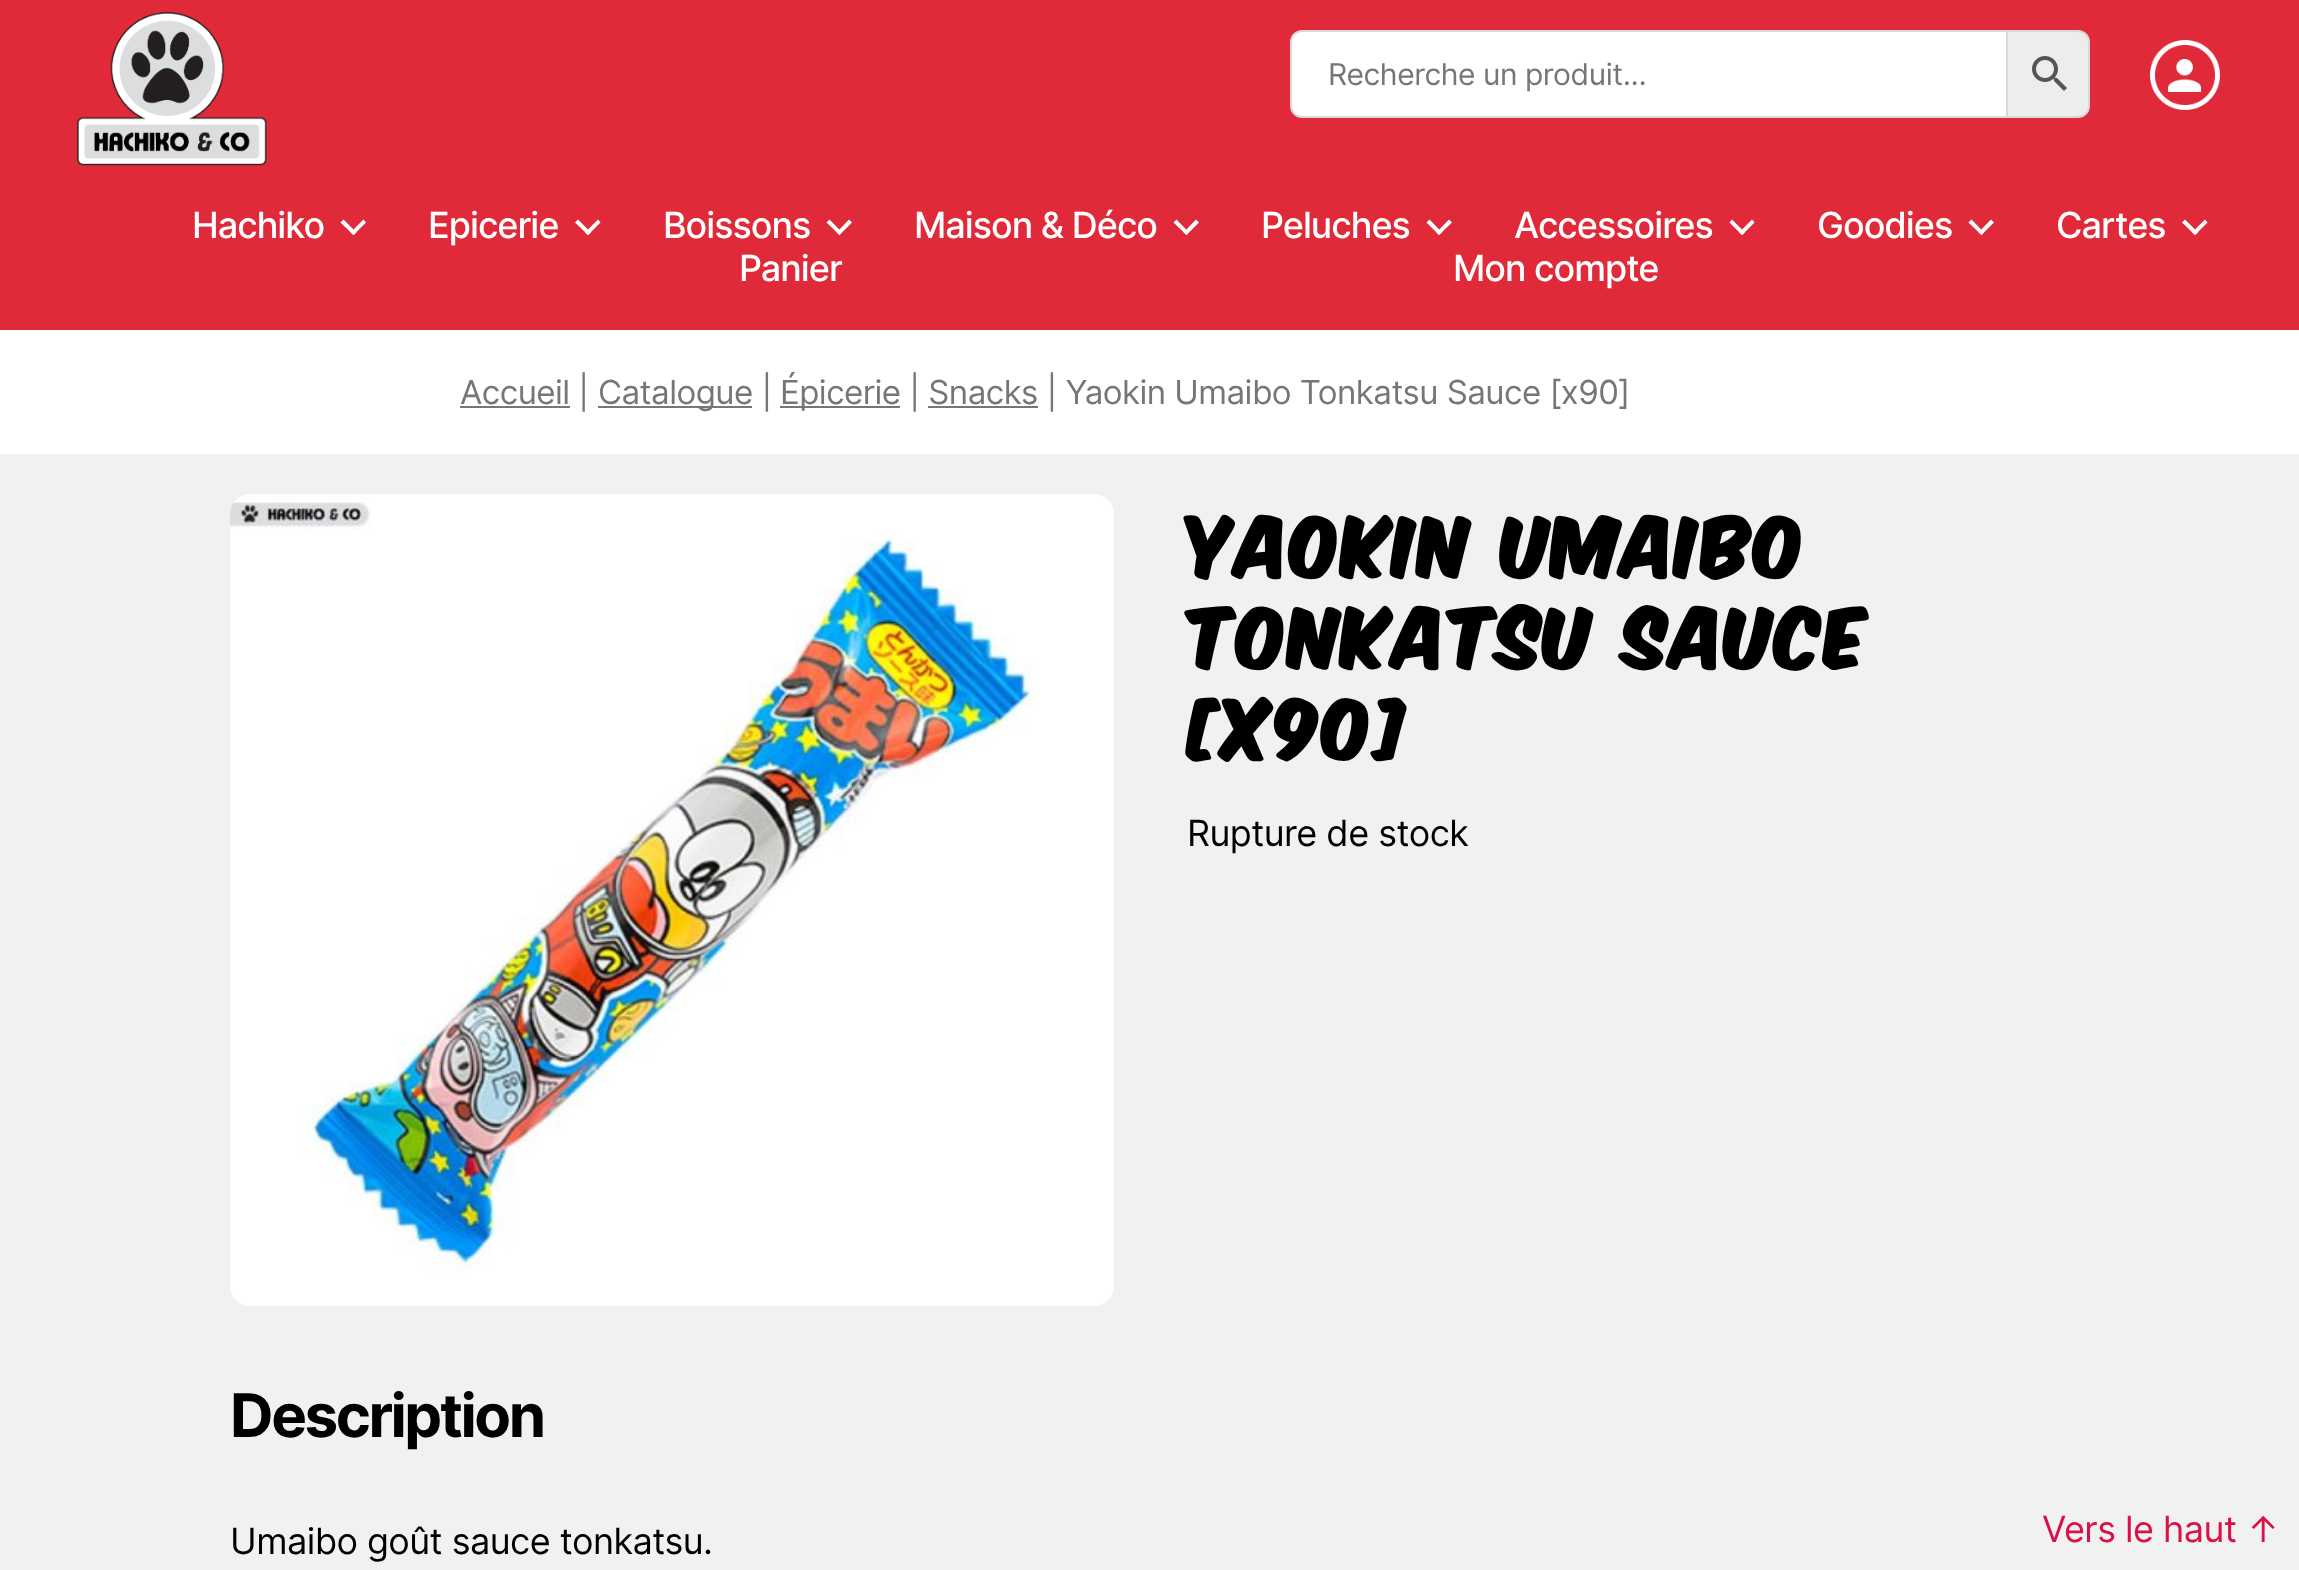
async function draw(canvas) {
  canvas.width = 2299;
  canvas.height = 1570;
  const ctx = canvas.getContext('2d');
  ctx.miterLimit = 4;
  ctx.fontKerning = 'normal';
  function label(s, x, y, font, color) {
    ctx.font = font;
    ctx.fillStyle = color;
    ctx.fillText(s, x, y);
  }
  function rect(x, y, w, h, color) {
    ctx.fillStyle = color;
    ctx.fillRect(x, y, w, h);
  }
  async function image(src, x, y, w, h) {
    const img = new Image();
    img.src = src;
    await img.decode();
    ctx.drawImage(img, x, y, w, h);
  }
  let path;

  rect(0, 0, 2299, 1570, '#f1f1f1');
  rect(0, 0, 2299, 330, '#e02a39');
  await image('assets/img1.png', 77, 12, 190, 154);
  ctx.fillStyle = '#ededed';
  ctx.beginPath();
  ctx.roundRect(2007, 31, 82, 86, [0, 11, 11, 0]);
  ctx.fill();
  ctx.strokeStyle = '#d8d8d8';
  ctx.lineWidth = 2;
  ctx.stroke();
  ctx.fillStyle = '#fff';
  ctx.beginPath();
  ctx.roundRect(1291, 31, 716, 86, [11, 0, 0, 11]);
  ctx.fill();
  ctx.stroke();
  ctx.letterSpacing = '-0.45px';
  label('Recherche un produit...', 1328, 85, '30px Inter', '#767676');
  await image('assets/img2.png', 2032, 56, 35, 35);
  await image('assets/img3.png', 2150, 40, 70, 70);
  ctx.letterSpacing = '-1px';
  label('Hachiko', 192, 238, '500 36px Inter', '#feffff');
  path = new Path2D('M340.5 222.5L343.5 219.5L356.5 232.5L353.5 235Z');
  ctx.fill(path);
  path = new Path2D('M350.5 232.5L363.5 219.5L366 222.5L353.5 235Z');
  ctx.fill(path);
  label('Epicerie', 428, 238, '500 36px Inter', '#feffff');
  path = new Path2D('M575 222.5L578 219.5L591 232.5L588 235Z');
  ctx.fill(path);
  path = new Path2D('M585 232.5L598 219.5L600.5 222.5L588 235Z');
  ctx.fill(path);
  label('Boissons', 663, 238, '500 36px Inter', '#feffff');
  path = new Path2D('M826.5 222.5L829.5 219.5L842 232.5L839.5 235Z');
  ctx.fill(path);
  path = new Path2D('M836.5 232.5L849 219.5L852 222.5L839.5 235Z');
  ctx.fill(path);
  label('Maison & Déco', 914, 238, '500 36px Inter', '#feffff');
  path = new Path2D('M1173.5 222.5L1176.5 219.5L1189 232.5L1186.5 235Z');
  ctx.fill(path);
  path = new Path2D('M1183.5 232.5L1196 219.5L1199 222.5L1186.5 235Z');
  ctx.fill(path);
  label('Peluches', 1261, 238, '500 36px Inter', '#feffff');
  path = new Path2D('M1426.5 222.5L1429.5 219.5L1442 232.5L1439 235Z');
  ctx.fill(path);
  path = new Path2D('M1436.5 232.5L1449 219.5L1452 222.5L1439 235Z');
  ctx.fill(path);
  label('Accessoires', 1514, 238, '500 36px Inter', '#feffff');
  path = new Path2D('M1729.5 222.5L1732 219.5L1745 232.5L1742 235Z');
  ctx.fill(path);
  path = new Path2D('M1739 232.5L1752 219.5L1754.5 222.5L1742 235Z');
  ctx.fill(path);
  label('Goodies', 1817, 238, '500 36px Inter', '#feffff');
  path = new Path2D('M1968.5 222.5L1971.5 219.5L1984 232.5L1981.5 235Z');
  ctx.fill(path);
  path = new Path2D('M1978.5 232.5L1991 219.5L1994 222.5L1981.5 235Z');
  ctx.fill(path);
  label('Cartes', 2056, 238, '500 36px Inter', '#feffff');
  path = new Path2D('M2182 222.5L2185 219.5L2198 232.5L2195 235Z');
  ctx.fill(path);
  path = new Path2D('M2192 232.5L2205 219.5L2207.5 222.5L2195 235Z');
  ctx.fill(path);
  label('Panier', 739, 281, '500 36px Inter', '#feffff');
  label('Mon compte', 1453, 281, '500 36px Inter', '#feffff');
  rect(0, 330, 2299, 124, '#fff');
  rect(460, 406, 110, 2, '#767676');
  ctx.letterSpacing = '-0.55px';
  label('Accueil |', 460, 404, '33.1px Inter', '#767676');
  rect(598, 406, 154, 2, '#767676');
  label('Catalogue |', 598, 404, '33.1px Inter', '#767676');
  rect(780, 406, 120, 2, '#767676');
  label('Épicerie | Snacks | Yaokin Umaibo Tonkatsu Sauce [x90]', 780, 404, '33.1px Inter', '#767676');
  rect(928, 406, 110, 2, '#767676');
  await image('assets/img4.png', 230, 494, 884, 812);
  ctx.letterSpacing = '4px';
  label('Yaokin Umaibo', 1187, 578, 'bold 70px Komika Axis', '#000');
  label('Tonkatsu Sauce', 1187, 669, 'bold 70px Komika Axis', '#000');
  label('[x90]', 1187, 760, 'bold 70px Komika Axis', '#000');
  ctx.letterSpacing = '-0.55px';
  label('Rupture de stock', 1187, 846, '36px Inter', '#000');
  ctx.letterSpacing = '-2.5px';
  label('Description', 230, 1437, 'bold 60px Inter', '#000');
  ctx.letterSpacing = '-0.55px';
  label('Umaibo goût sauce tonkatsu.', 230, 1554, '36px Inter', '#000');
  label('Vers le haut ↑', 2042, 1542, '36px Inter', '#d91146');
}

draw(document.querySelector('canvas'));
